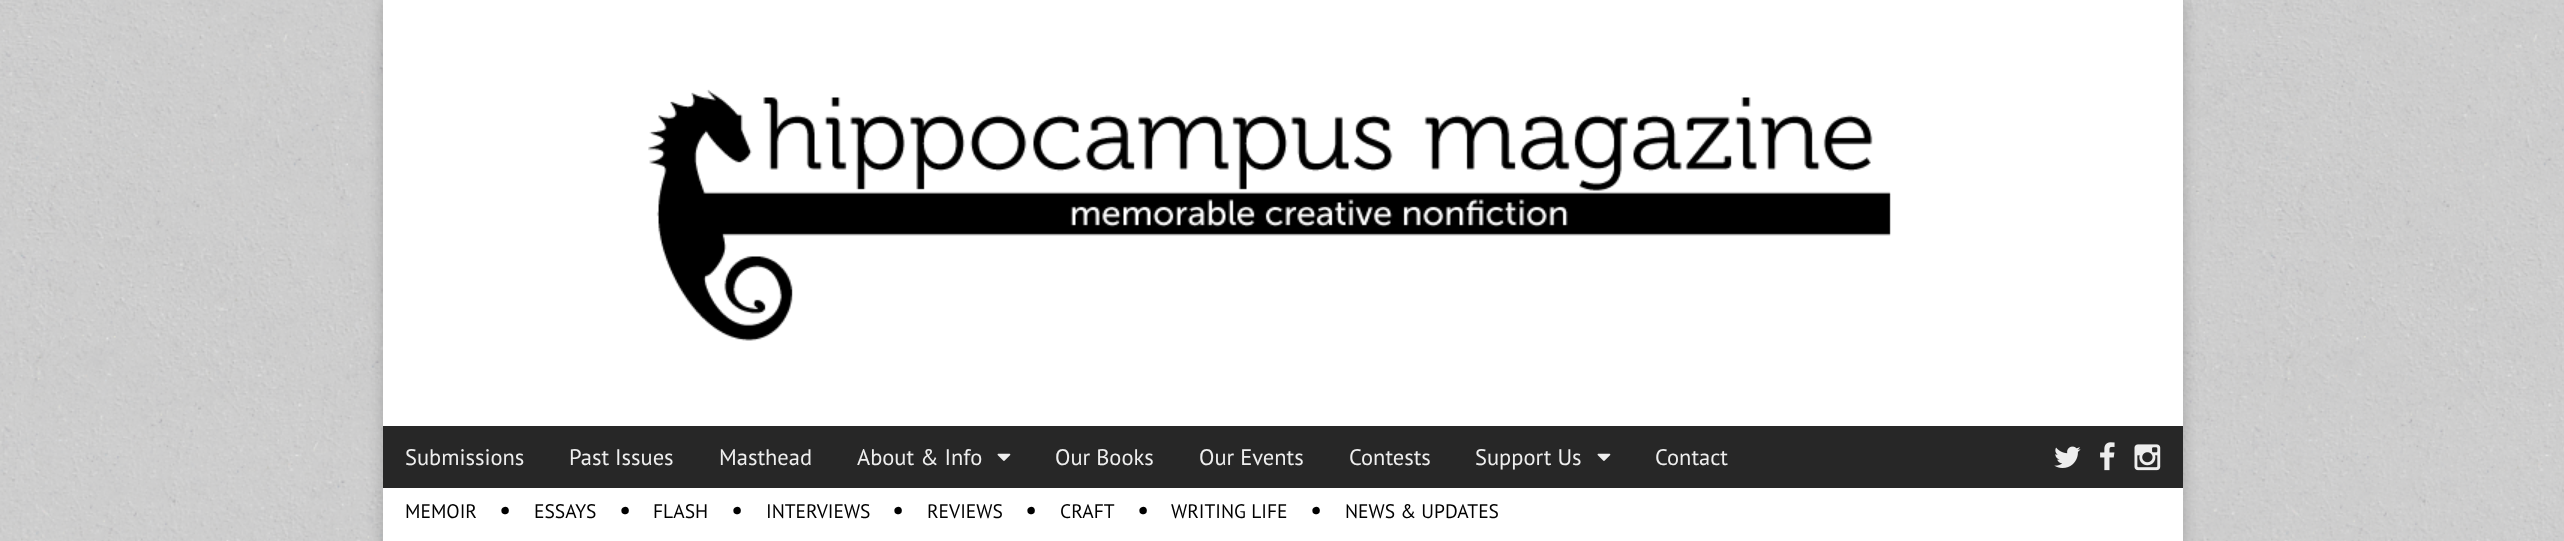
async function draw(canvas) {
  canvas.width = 2564;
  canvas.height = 541;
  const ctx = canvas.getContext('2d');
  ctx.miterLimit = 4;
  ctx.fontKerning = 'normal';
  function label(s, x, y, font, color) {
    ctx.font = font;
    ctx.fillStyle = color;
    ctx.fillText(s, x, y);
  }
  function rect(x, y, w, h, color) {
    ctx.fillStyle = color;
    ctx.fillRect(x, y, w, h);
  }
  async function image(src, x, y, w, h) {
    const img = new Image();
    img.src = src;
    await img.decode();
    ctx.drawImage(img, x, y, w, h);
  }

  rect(0, 0, 2564, 541, '#fff');
  await image('assets/img1.png', 0, 0, 2564, 541);
  ctx.fillStyle = '#00000033';
  ctx.filter = 'blur(7.5px)';
  ctx.beginPath();
  ctx.rect(383, 0, 1800, 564);
  ctx.fill();
  ctx.filter = 'none';
  rect(383, 0, 1800, 541, '#fff');
  await image('assets/img2.png', 648, 89, 1243, 252);
  rect(383, 426, 1800, 62, '#272727');
  label('Submissions', 405, 465, '22.5px PT Sans', '#eee');
  label('Past Issues', 569, 465, '22.5px PT Sans', '#eee');
  label('Masthead', 719, 465, '22.5px PT Sans', '#eee');
  label('About & Info', 857, 465, '22.5px PT Sans', '#eee');
  await image('assets/img3.png', 997, 453, 14, 8);
  label('Our Books', 1055, 465, '22.5px PT Sans', '#eee');
  label('Our Events', 1199, 465, '22.5px PT Sans', '#eee');
  label('Contests', 1349, 465, '22.5px PT Sans', '#eee');
  label('Support Us', 1475, 465, '22.5px PT Sans', '#eee');
  await image('assets/img3.png', 1597, 453, 14, 8);
  label('Contact', 1655, 465, '22.5px PT Sans', '#eee');
  await image('assets/img4.png', 2054, 446, 27, 22);
  await image('assets/img5.png', 2100, 442, 15, 29);
  await image('assets/img6.png', 2134, 444, 27, 27);
  label('MEMOIR', 405, 518, '19.5px PT Sans', '#000');
  label('•', 499, 519, '27px PT Sans', '#000');
  label('ESSAYS', 534, 518, '19.5px PT Sans', '#000');
  label('•', 619, 519, '27px PT Sans', '#000');
  label('FLASH', 653, 518, '19.5px PT Sans', '#000');
  label('•', 731, 519, '27px PT Sans', '#000');
  label('INTERVIEWS', 766, 518, '19.5px PT Sans', '#000');
  label('•', 892, 519, '27px PT Sans', '#000');
  label('REVIEWS', 927, 518, '19.5px PT Sans', '#000');
  label('•', 1025, 519, '27px PT Sans', '#000');
  label('CRAFT', 1060, 518, '19.5px PT Sans', '#000');
  label('•', 1137, 519, '27px PT Sans', '#000');
  label('WRITING LIFE', 1171, 518, '19.5px PT Sans', '#000');
  label('•', 1310, 519, '27px PT Sans', '#000');
  label('NEWS & UPDATES', 1345, 518, '19.5px PT Sans', '#000');
}

draw(document.querySelector('canvas'));
